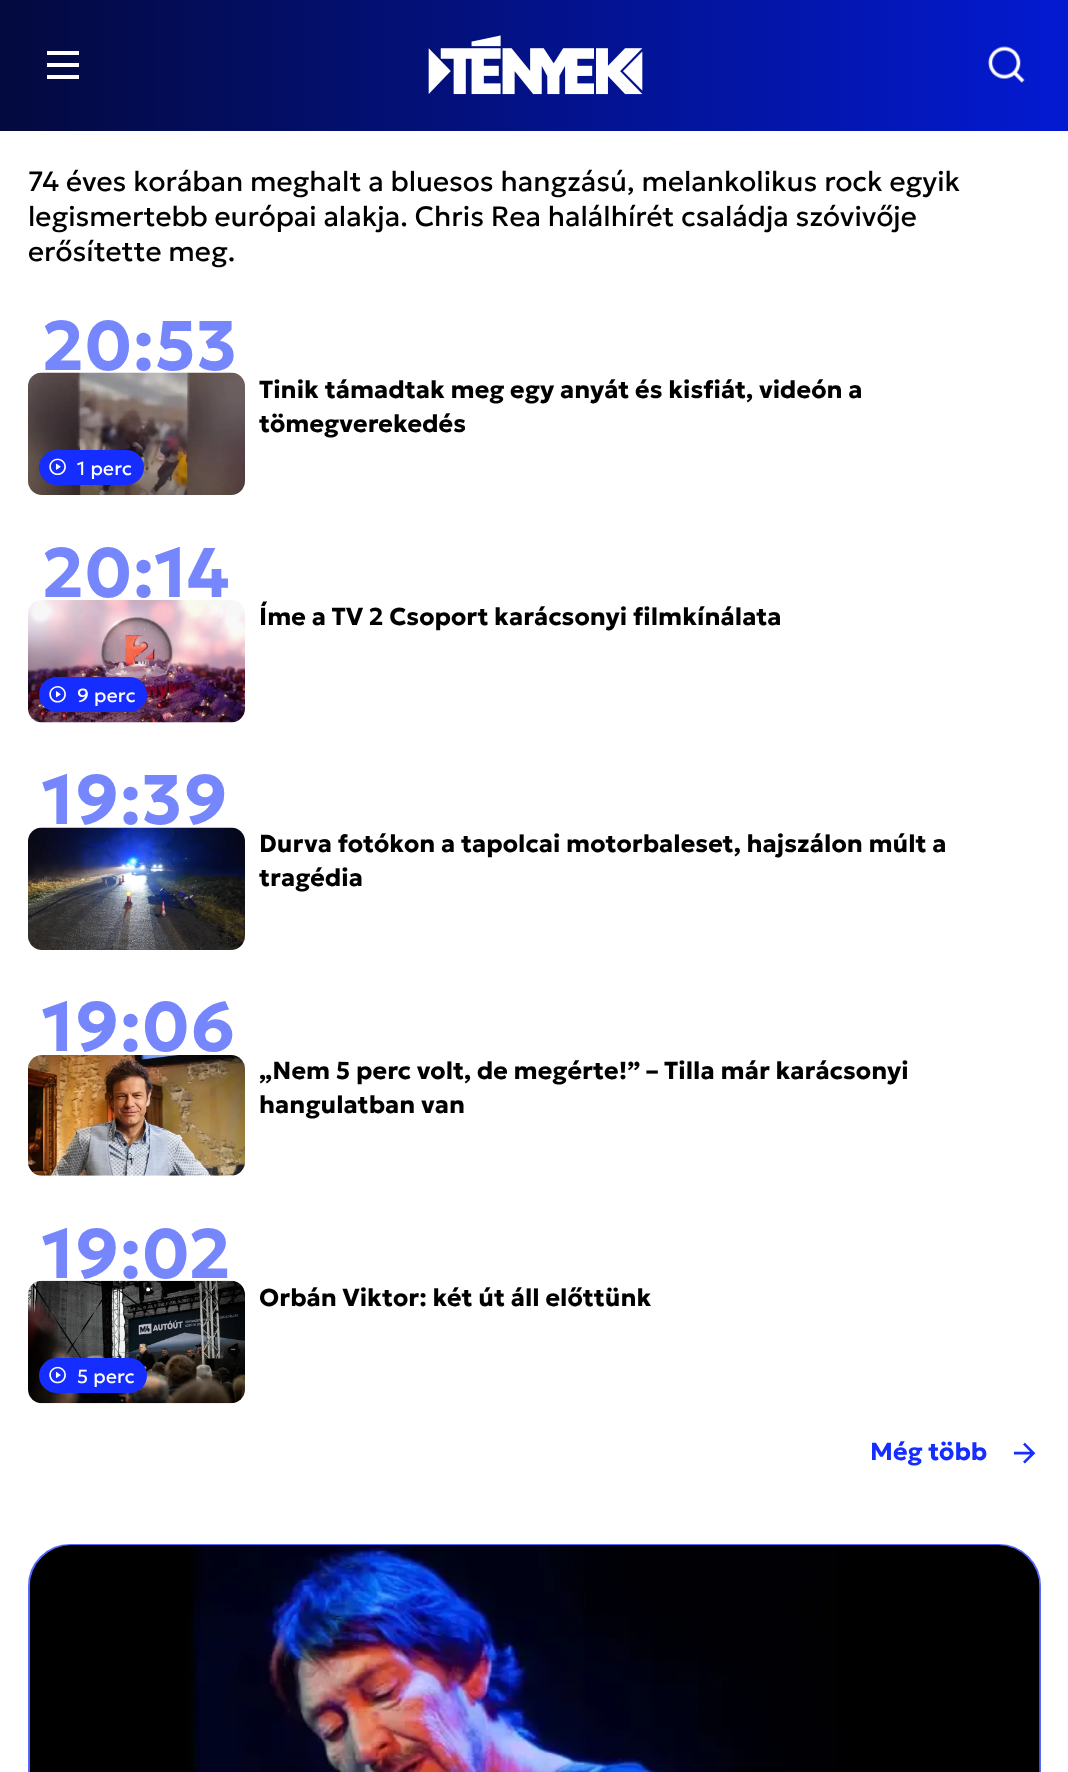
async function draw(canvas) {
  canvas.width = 1068;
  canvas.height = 1772;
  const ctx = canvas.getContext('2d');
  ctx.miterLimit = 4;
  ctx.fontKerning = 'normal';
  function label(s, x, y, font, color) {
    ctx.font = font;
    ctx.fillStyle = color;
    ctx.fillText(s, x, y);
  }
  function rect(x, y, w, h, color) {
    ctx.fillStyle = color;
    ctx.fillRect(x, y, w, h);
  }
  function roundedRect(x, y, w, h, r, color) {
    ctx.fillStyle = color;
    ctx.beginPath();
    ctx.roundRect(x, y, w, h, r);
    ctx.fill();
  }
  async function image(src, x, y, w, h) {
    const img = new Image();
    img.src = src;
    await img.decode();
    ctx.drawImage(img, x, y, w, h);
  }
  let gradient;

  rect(0, 0, 1068, 1772, '#fff');
  gradient = ctx.createLinearGradient(0, 65, 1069, 65);
  gradient.addColorStop(0, '#030a3e');
  gradient.addColorStop(1, '#031ad2');
  ctx.fillStyle = gradient;
  ctx.fillRect(0, 0, 1068, 131);
  rect(47, 51, 32, 4, '#fff');
  rect(47, 63, 32, 4, '#fff');
  rect(47, 75, 32, 4, '#fff');
  await image('assets/img1.png', 428, 35, 215, 60);
  await image('assets/img2.png', 988, 46, 37, 37);
  label('74 éves korában meghalt a bluesos hangzású, melankolikus rock egyik', 28, 191, '28px Geologica', '#000');
  label('legismertebb európai alakja. Chris Rea halálhírét családja szóvivője', 28, 226, '28px Geologica', '#000');
  label('erősítette meg.', 28, 261, '28px Geologica', '#000');
  ctx.letterSpacing = '0.5px';
  label('20:53', 42, 370, 'bold 70px Geologica', '#7686fc');
  ctx.letterSpacing = '0.05px';
  label('Tinik támadtak meg egy anyát és kisfiát, videón a', 259, 398, 'bold 24.5px Geologica', '#000');
  label('tömegverekedés', 259, 432, 'bold 24.5px Geologica', '#000');
  await image('assets/img3.png', 28, 372, 217, 123);
  roundedRect(39, 450, 105, 35, 17.5, '#152eff');
  await image('assets/img4.png', 49, 458, 17, 17);
  ctx.letterSpacing = '0.25px';
  label('1 perc', 77, 475, '19px Geologica', '#fff');
  ctx.letterSpacing = '0.5px';
  label('20:14', 42, 597, 'bold 70px Geologica', '#7686fc');
  ctx.letterSpacing = '0.05px';
  label('Íme a TV 2 Csoport karácsonyi filmkínálata', 259, 625, 'bold 24.5px Geologica', '#000');
  await image('assets/img5.png', 28, 600, 217, 123);
  roundedRect(39, 677, 108, 35, 17.5, '#152eff');
  await image('assets/img6.png', 49, 686, 17, 17);
  ctx.letterSpacing = '0.25px';
  label('9 perc', 77, 702, '19px Geologica', '#fff');
  ctx.letterSpacing = '0.5px';
  label('19:39', 42, 824, 'bold 70px Geologica', '#7686fc');
  await image('assets/img7.png', 28, 827, 217, 123);
  ctx.letterSpacing = '0.05px';
  label('Durva fotókon a tapolcai motorbaleset, hajszálon múlt a', 259, 852, 'bold 24.5px Geologica', '#000');
  label('tragédia', 259, 886, 'bold 24.5px Geologica', '#000');
  ctx.letterSpacing = '0.5px';
  label('19:06', 42, 1051, 'bold 70px Geologica', '#7686fc');
  await image('assets/img8.png', 28, 1055, 217, 121);
  ctx.letterSpacing = '0.05px';
  label('„Nem 5 perc volt, de megérte!” – Tilla már karácsonyi', 259, 1079, 'bold 24.5px Geologica', '#000');
  label('hangulatban van', 259, 1113, 'bold 24.5px Geologica', '#000');
  ctx.letterSpacing = '0.5px';
  label('19:02', 42, 1278, 'bold 70px Geologica', '#7686fc');
  ctx.letterSpacing = '0.05px';
  label('Orbán Viktor: két út áll előttünk', 259, 1306, 'bold 24.5px Geologica', '#000');
  await image('assets/img9.png', 28, 1280, 217, 124);
  roundedRect(39, 1358, 108, 35, 17.5, '#152eff');
  await image('assets/img10.png', 49, 1366, 17, 18);
  ctx.letterSpacing = '0.25px';
  label('5 perc', 77, 1383, '19px Geologica', '#fff');
  ctx.letterSpacing = '0px';
  label('Még több', 870, 1460, 'bold 24.5px Geologica', '#152eff');
  await image('assets/img11.png', 1013, 1442, 23, 22);
  ctx.fillStyle = '#04127c';
  ctx.beginPath();
  ctx.roundRect(29, 1545, 1011, 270, 41);
  ctx.fill();
  ctx.strokeStyle = '#5669fd';
  ctx.lineWidth = 2;
  ctx.stroke();
  await image('assets/img12.png', 29, 1545, 1011, 227);
}

draw(document.querySelector('canvas'));
